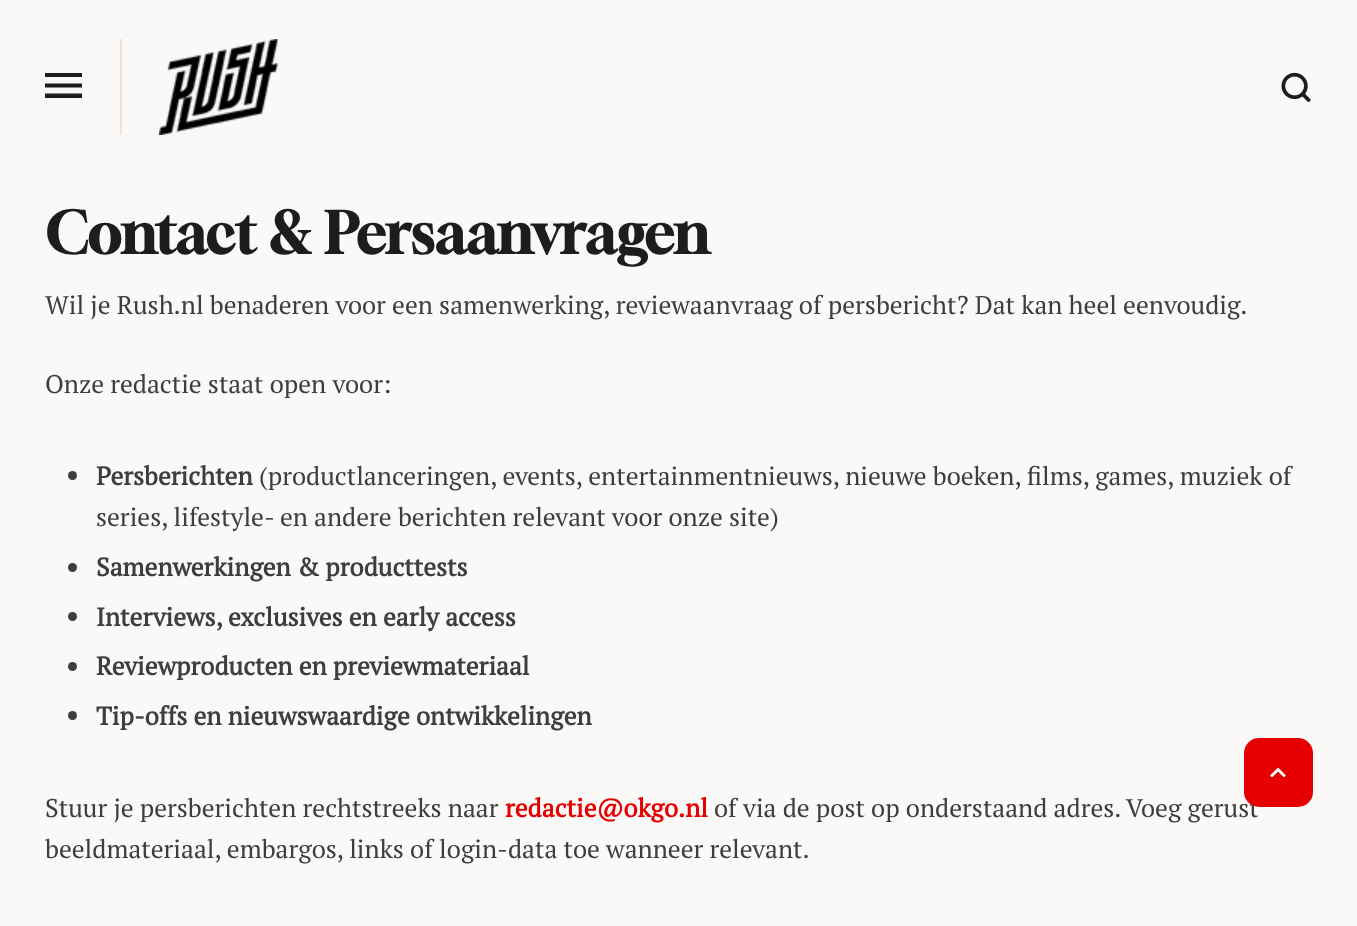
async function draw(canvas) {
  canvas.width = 1357;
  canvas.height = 926;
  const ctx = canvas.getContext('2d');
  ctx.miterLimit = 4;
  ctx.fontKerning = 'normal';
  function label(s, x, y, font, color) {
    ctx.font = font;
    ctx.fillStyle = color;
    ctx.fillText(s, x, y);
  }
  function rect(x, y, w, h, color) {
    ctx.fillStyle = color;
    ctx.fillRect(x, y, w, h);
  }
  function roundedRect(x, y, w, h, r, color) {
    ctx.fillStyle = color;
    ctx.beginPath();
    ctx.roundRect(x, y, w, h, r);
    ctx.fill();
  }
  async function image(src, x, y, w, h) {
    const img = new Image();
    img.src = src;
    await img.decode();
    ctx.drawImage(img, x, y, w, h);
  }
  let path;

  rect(0, 0, 1357, 926, '#faf9f7');
  ctx.fillStyle = '#1d1d1b';
  path = new Path2D('M82 93.5H45V98H82ZM82 83.5H45V87.5H82ZM82 73H45V77H82Z');
  ctx.fill(path);
  rect(120, 39, 2, 96, '#eae4da');
  await image('assets/img1.png', 159, 39, 119, 96);
  await image('assets/img2.png', 1281, 72, 30, 30);
  label('of via de post op onderstaand adres. Voeg gerust', 714, 817, '25.5px PT Serif', '#3e3e3e');
  roundedRect(1244, 738, 69, 69, 15, '#e60002');
  await image('assets/img3.png', 1270, 767, 16, 11);
  label('Contact & Persaanvragen', 45, 254, 'bold 57px Gloock', '#1d1d1b');
  label('Wil je Rush.nl benaderen voor een samenwerking, reviewaanvraag of persbericht? Dat kan heel eenvoudig.', 45, 314, '25.5px PT Serif', '#3e3e3e');
  label('Onze redactie staat open voor:', 45, 393, '25.5px PT Serif', '#3e3e3e');
  ctx.beginPath();
  ctx.arc(72.5, 475.5, 4.5, 0, 2 * Math.PI);
  ctx.fill();
  label('Persberichten', 96, 485, 'bold 25.5px PT Serif', '#3e3e3e');
  label('(productlanceringen, events, entertainmentnieuws, nieuwe boeken, films, games, muziek of', 259, 485, '25.5px PT Serif', '#3e3e3e');
  label('series, lifestyle- en andere berichten relevant voor onze site)', 96, 526, '25.5px PT Serif', '#3e3e3e');
  ctx.beginPath();
  ctx.arc(72.5, 567.5, 4.5, 0, 2 * Math.PI);
  ctx.fill();
  label('Samenwerkingen & producttests', 96, 576, 'bold 25.5px PT Serif', '#3e3e3e');
  ctx.beginPath();
  ctx.arc(72.5, 616.5, 4.5, 0, 2 * Math.PI);
  ctx.fill();
  label('Interviews, exclusives en early access', 96, 626, 'bold 25.5px PT Serif', '#3e3e3e');
  ctx.beginPath();
  ctx.arc(72.5, 666.5, 4.5, 0, 2 * Math.PI);
  ctx.fill();
  label('Reviewproducten en previewmateriaal', 96, 675, 'bold 25.5px PT Serif', '#3e3e3e');
  ctx.beginPath();
  ctx.arc(72.5, 715.5, 4.5, 0, 2 * Math.PI);
  ctx.fill();
  label('Tip-offs en nieuwswaardige ontwikkelingen', 96, 725, 'bold 25.5px PT Serif', '#3e3e3e');
  label('Stuur je persberichten rechtstreeks naar', 45, 817, '25.5px PT Serif', '#3e3e3e');
  label('redactie@okgo.nl', 505, 817, 'bold 25.5px PT Serif', '#e60002');
  label('beeldmateriaal, embargos, links of login-data toe wanneer relevant.', 45, 858, '25.5px PT Serif', '#3e3e3e');
}

draw(document.querySelector('canvas'));
